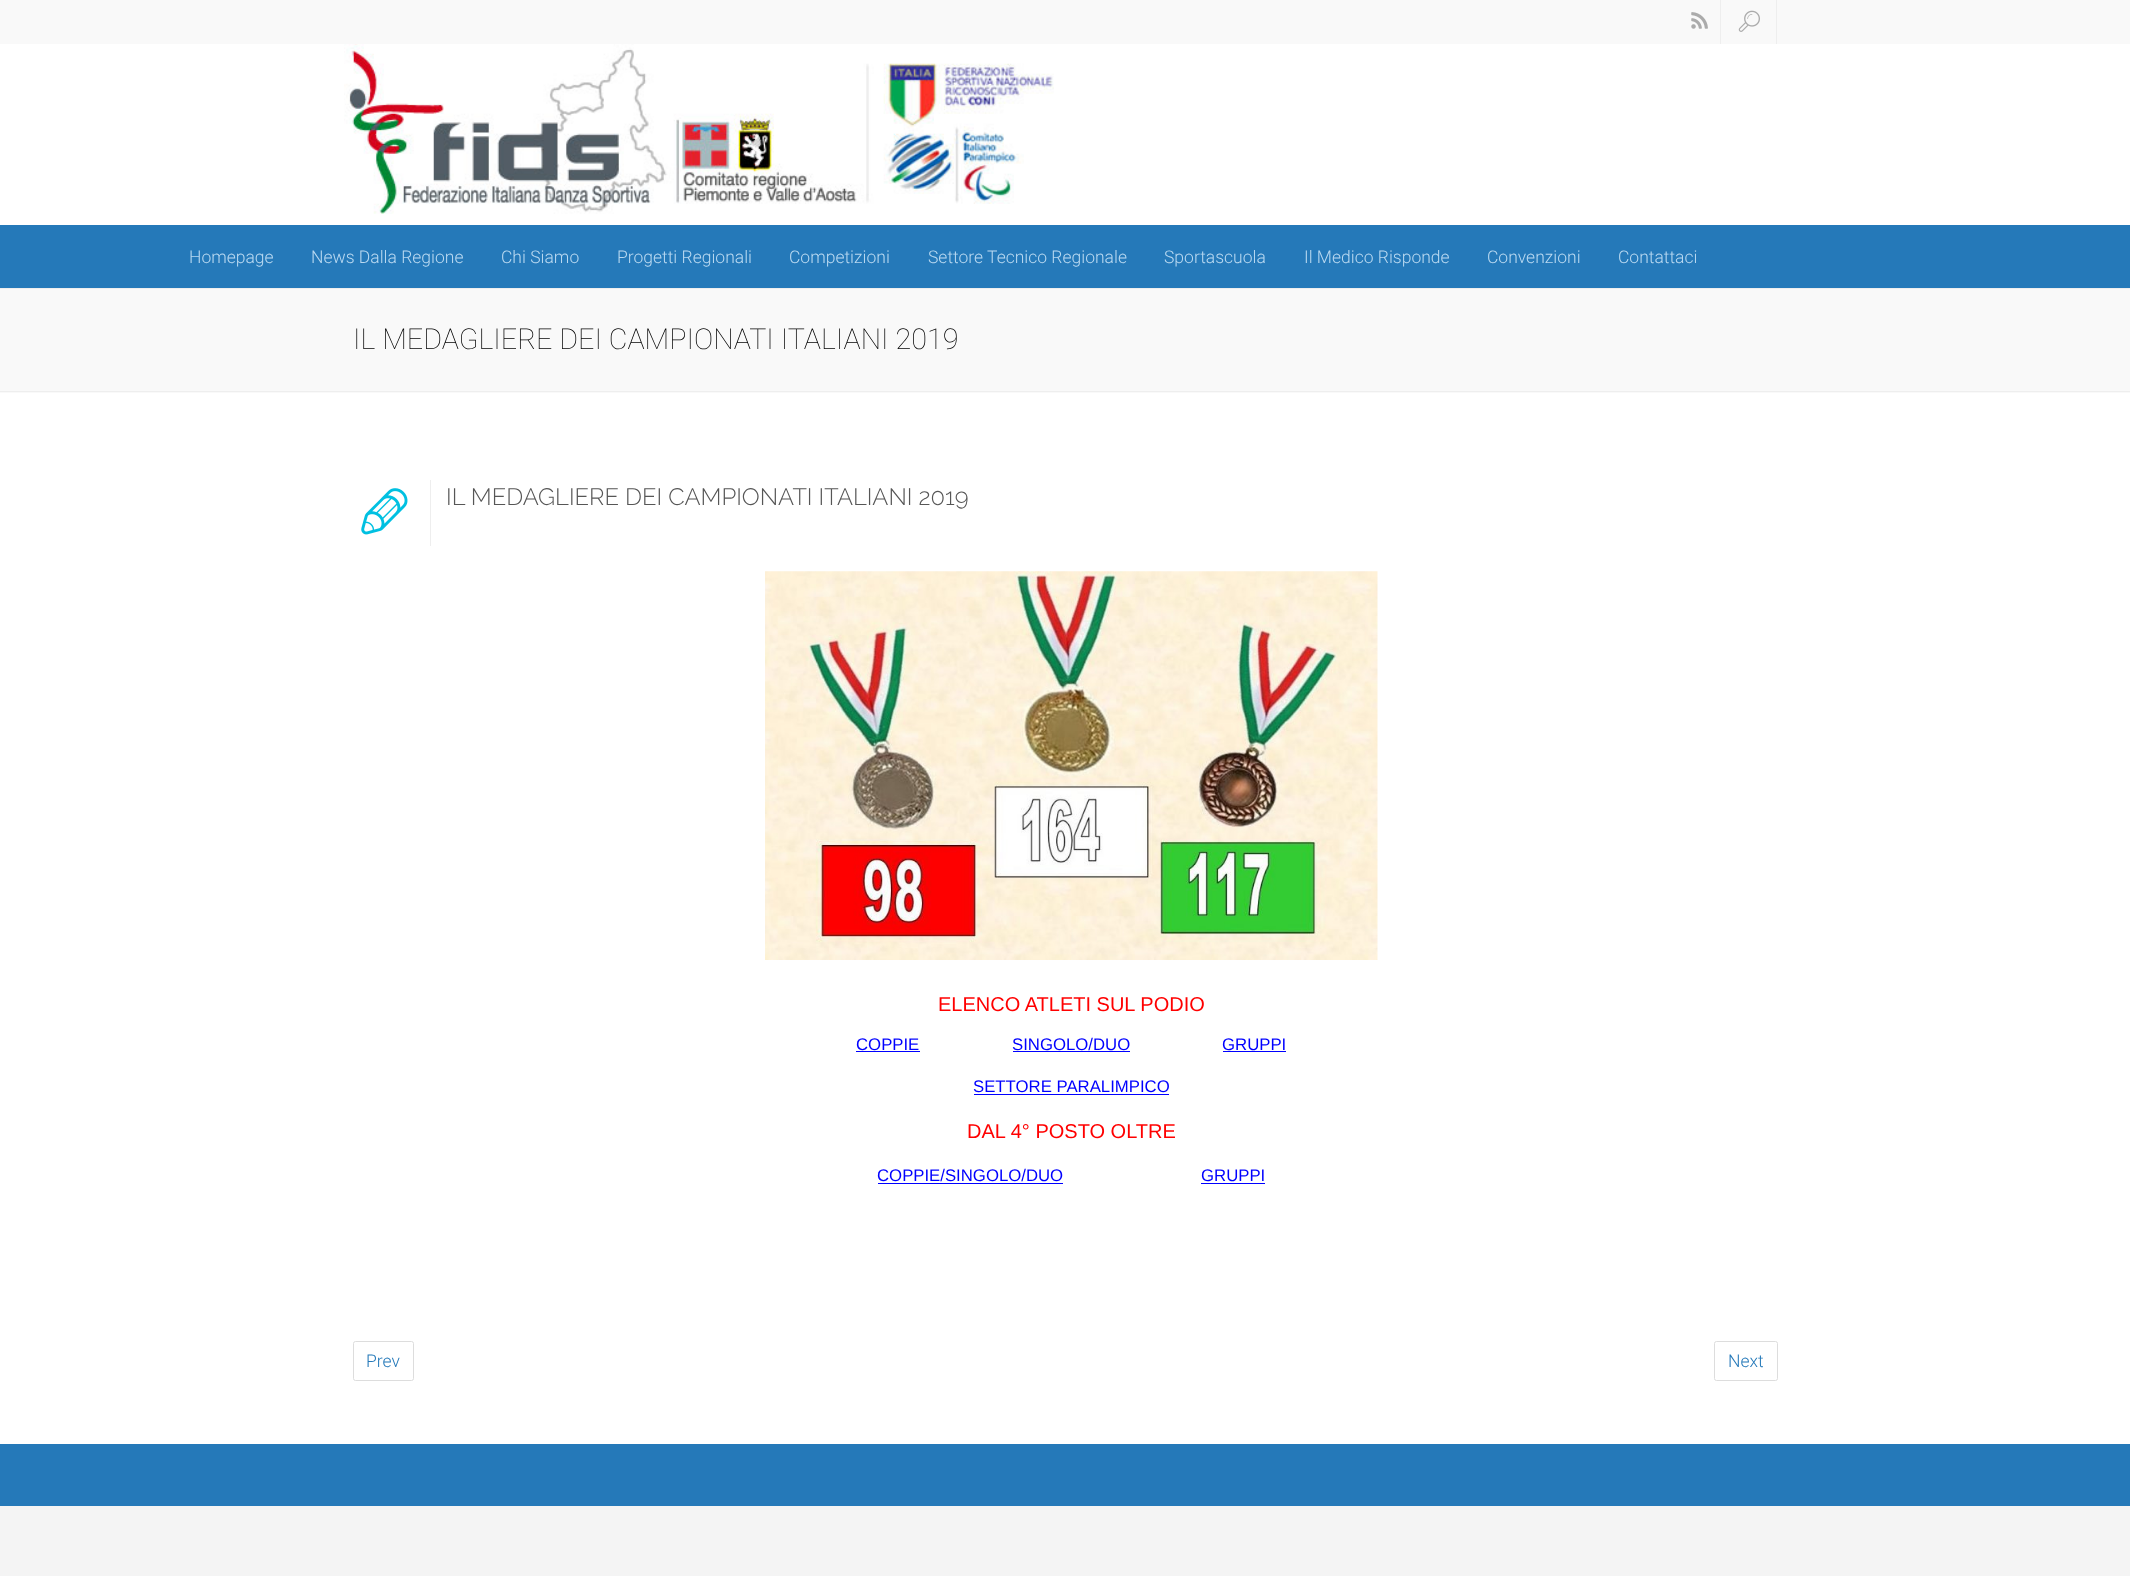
async function draw(canvas) {
  canvas.width = 2130;
  canvas.height = 1576;
  const ctx = canvas.getContext('2d');
  ctx.miterLimit = 4;
  ctx.fontKerning = 'normal';
  function label(s, x, y, font, color) {
    ctx.font = font;
    ctx.fillStyle = color;
    ctx.fillText(s, x, y);
  }
  function rect(x, y, w, h, color) {
    ctx.fillStyle = color;
    ctx.fillRect(x, y, w, h);
  }
  async function image(src, x, y, w, h) {
    const img = new Image();
    img.src = src;
    await img.decode();
    ctx.drawImage(img, x, y, w, h);
  }

  rect(0, 0, 2130, 1576, '#fff');
  rect(0, 0, 2130, 44, '#f9f9f9');
  rect(1720, 0, 1, 44, '#eee');
  await image('assets/img1.png', 1691, 12, 17, 17);
  rect(1776, 0, 1, 44, '#eee');
  await image('assets/img2.png', 1738, 10, 22, 22);
  await image('assets/img3.png', 344, 44, 710, 170);
  rect(0, 225, 2130, 63, '#2579b9');
  label('Homepage', 189, 263, '300 17.5px Roboto', '#b9d9f1');
  label('News Dalla Regione', 311, 263, '300 17.5px Roboto', '#b9d9f1');
  label('Chi Siamo', 501, 263, '300 17.5px Roboto', '#b9d9f1');
  label('Progetti Regionali', 617, 263, '300 17.5px Roboto', '#b9d9f1');
  label('Competizioni', 789, 263, '300 17.5px Roboto', '#b9d9f1');
  label('Settore Tecnico Regionale', 928, 263, '300 17.5px Roboto', '#b9d9f1');
  label('Sportascuola', 1164, 263, '300 17.5px Roboto', '#b9d9f1');
  label('Il Medico Risponde', 1304, 263, '300 17.5px Roboto', '#b9d9f1');
  label('Convenzioni', 1487, 263, '300 17.5px Roboto', '#b9d9f1');
  label('Contattaci', 1618, 263, '300 17.5px Roboto', '#b9d9f1');
  rect(0, 289, 2130, 104, '#f9f9f9');
  rect(0, 288, 2130, 1, '#eee');
  rect(0, 391, 2130, 1, '#eee');
  label('IL MEDAGLIERE DEI CAMPIONATI ITALIANI 2019', 353, 349, '100 28.75px Roboto', '#000');
  rect(430, 480, 1, 66, '#eee');
  await image('assets/img4.png', 361, 488, 47, 47);
  label('IL MEDAGLIERE DEI CAMPIONATI ITALIANI 2019', 446, 505, '300 23.75px Raleway', '#565656');
  await image('assets/img5.png', 765, 571, 613, 389);
  label('ELENCO ATLETI SUL PODIO', 938, 1011, '20px Liberation Sans', '#f00');
  label('COPPIE', 856, 1050, '16.75px Liberation Sans', '#00f');
  rect(856, 1051, 64, 1, '#00f');
  label('SINGOLO/DUO', 1012, 1050, '16.75px Liberation Sans', '#00f');
  rect(1013, 1051, 117, 1, '#00f');
  label('GRUPPI', 1222, 1050, '16.75px Liberation Sans', '#00f');
  rect(1223, 1051, 63, 1, '#00f');
  label('SETTORE PARALIMPICO', 973, 1092, '16.75px Liberation Sans', '#00f');
  rect(974, 1094, 195, 1, '#00f');
  label('DAL 4° POSTO OLTRE', 967, 1138, '20px Liberation Sans', '#f00');
  label('COPPIE/SINGOLO/DUO', 877, 1181, '16.75px Liberation Sans', '#00f');
  rect(878, 1183, 185, 1, '#00f');
  label('GRUPPI', 1201, 1181, '16.75px Liberation Sans', '#00f');
  rect(1201, 1183, 64, 1, '#00f');
  ctx.beginPath();
  ctx.roundRect(353.5, 1341.5, 60, 39, 2);
  ctx.strokeStyle = '#ddd';
  ctx.stroke();
  label('Prev', 366, 1367, '300 17.5px Roboto', '#2579b9');
  ctx.beginPath();
  ctx.roundRect(1714.5, 1341.5, 63, 39, 2);
  ctx.stroke();
  label('Next', 1728, 1367, '300 17.5px Roboto', '#2579b9');
  rect(0, 1506, 2130, 70, '#f4f4f4');
  rect(0, 1444, 2130, 62, '#2579b9');
}

draw(document.querySelector('canvas'));
